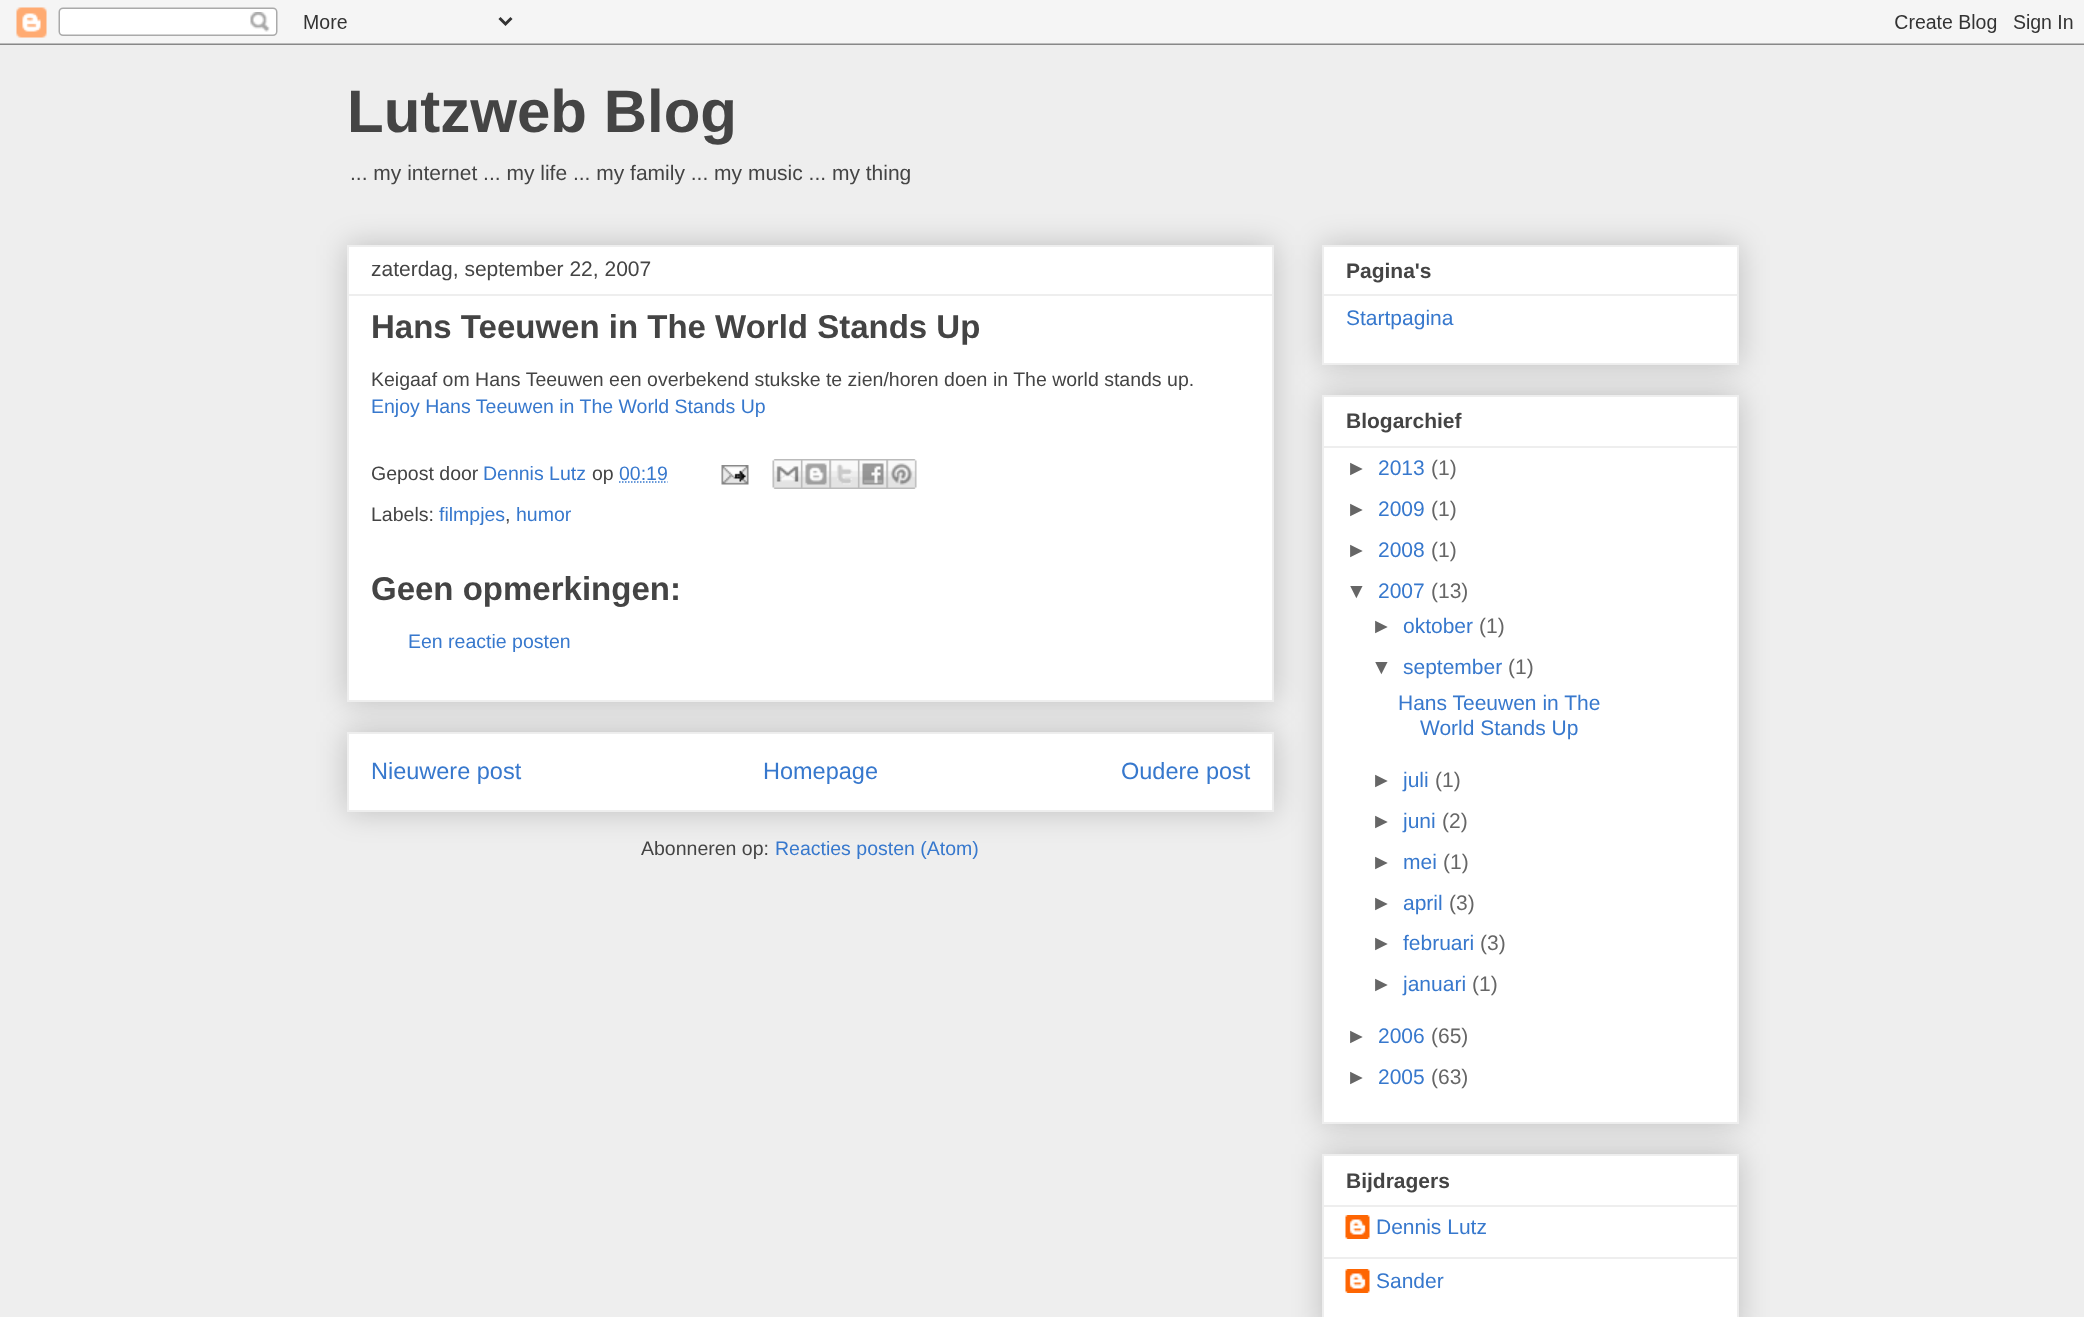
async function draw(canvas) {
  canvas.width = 2084;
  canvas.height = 1317;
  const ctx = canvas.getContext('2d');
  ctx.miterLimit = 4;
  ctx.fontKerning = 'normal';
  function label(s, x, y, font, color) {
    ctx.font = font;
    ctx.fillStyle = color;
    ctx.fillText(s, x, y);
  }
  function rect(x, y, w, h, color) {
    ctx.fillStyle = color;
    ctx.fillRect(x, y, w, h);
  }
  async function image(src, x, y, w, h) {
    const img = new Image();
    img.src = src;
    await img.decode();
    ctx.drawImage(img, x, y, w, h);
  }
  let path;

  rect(0, 0, 2084, 1317, '#eee');
  await image('assets/img1.png', 0, 0, 2084, 45);
  label('Lutzweb Blog', 347, 132, 'bold 60px Liberation Sans', '#444');
  label('... my internet ... my life ... my family ... my music ... my thing', 350, 180, '21px Liberation Sans', '#444');
  ctx.fillStyle = '#00000033';
  ctx.filter = 'blur(15px)';
  ctx.beginPath();
  ctx.rect(347, 732, 927, 80);
  ctx.fill();
  ctx.filter = 'none';
  ctx.fillStyle = '#fff';
  ctx.beginPath();
  ctx.rect(348, 733, 925, 78);
  ctx.fill();
  ctx.strokeStyle = '#eee';
  ctx.lineWidth = 2;
  ctx.stroke();
  ctx.fillStyle = '#00000033';
  ctx.filter = 'blur(15px)';
  ctx.beginPath();
  ctx.rect(347, 245, 927, 457);
  ctx.fill();
  ctx.filter = 'none';
  ctx.fillStyle = '#fff';
  ctx.beginPath();
  ctx.rect(348, 246, 925, 455);
  ctx.fill();
  ctx.stroke();
  label('zaterdag, september 22, 2007', 371, 276, '21px Liberation Sans', '#444');
  rect(348, 294, 924, 2, '#eee');
  label('Hans Teeuwen in The World Stands Up', 371, 338, 'bold 33px Liberation Sans', '#444');
  label('Keigaaf om Hans Teeuwen een overbekend stukske te zien/horen doen in The world stands up.', 371, 386, '19.5px Liberation Sans', '#444');
  label('Enjoy Hans Teeuwen in The World Stands Up', 371, 413, '19.5px Liberation Sans', '#3778cd');
  label('Gepost door', 371, 480, '19.5px Liberation Sans', '#444');
  label('Dennis Lutz', 483, 480, '19.5px Liberation Sans', '#3778cd');
  label('op', 592, 480, '19.5px Liberation Sans', '#444');
  path = new Path2D('M619 482H667.5');
  ctx.strokeStyle = '#3778cd';
  ctx.lineWidth = 1.5;
  ctx.setLineDash([1.5, 1.5]);
  ctx.stroke(path);
  label('00:19', 619, 480, '19.5px Liberation Sans', '#3778cd');
  await image('assets/img2.png', 721, 465, 28, 20);
  await image('assets/img3.png', 772, 459, 29, 30);
  await image('assets/img4.png', 801, 459, 29, 30);
  await image('assets/img5.png', 829, 459, 29, 30);
  await image('assets/img6.png', 858, 459, 29, 30);
  await image('assets/img7.png', 886, 459, 31, 30);
  label('Labels:', 371, 521, '19.5px Liberation Sans', '#444');
  label('filmpjes', 439, 521, '19.5px Liberation Sans', '#3778cd');
  label(',', 505, 521, '19.5px Liberation Sans', '#444');
  label('humor', 516, 521, '19.5px Liberation Sans', '#3778cd');
  label('Geen opmerkingen:', 371, 600, 'bold 33px Liberation Sans', '#444');
  label('Een reactie posten', 408, 648, '19.5px Liberation Sans', '#3778cd');
  label('Nieuwere post', 371, 779, '23.5px Liberation Sans', '#3778cd');
  label('Homepage', 763, 779, '23.5px Liberation Sans', '#3778cd');
  label('Oudere post', 1121, 779, '23.5px Liberation Sans', '#3778cd');
  label('Abonneren op:', 641, 855, '19.5px Liberation Sans', '#444');
  label('Reacties posten (Atom)', 775, 855, '19.5px Liberation Sans', '#3778cd');
  ctx.fillStyle = '#00000033';
  ctx.filter = 'blur(15px)';
  ctx.beginPath();
  ctx.rect(1322, 245, 417, 120);
  ctx.fill();
  ctx.filter = 'none';
  ctx.fillStyle = '#fff';
  ctx.beginPath();
  ctx.rect(1323, 246, 415, 118);
  ctx.fill();
  ctx.strokeStyle = '#eee';
  ctx.lineWidth = 2;
  ctx.setLineDash([]);
  ctx.stroke();
  label('Pagina\'s', 1346, 278, 'bold 21px Liberation Sans', '#444');
  rect(1323, 294, 414, 2, '#eee');
  label('Startpagina', 1346, 325, '21px Liberation Sans', '#3778cd');
  ctx.fillStyle = '#00000033';
  ctx.filter = 'blur(15px)';
  ctx.beginPath();
  ctx.rect(1322, 395, 417, 729);
  ctx.fill();
  ctx.filter = 'none';
  ctx.fillStyle = '#fff';
  ctx.beginPath();
  ctx.rect(1323, 396, 415, 727);
  ctx.fill();
  ctx.stroke();
  label('Blogarchief', 1346, 428, 'bold 21px Liberation Sans', '#444');
  rect(1323, 446, 414, 2, '#eee');
  label('►', 1346, 475, '21px Liberation Sans', '#666');
  label('2013', 1378, 475, '21px Liberation Sans', '#3778cd');
  label('(1)', 1431, 475, '21px Liberation Sans', '#666');
  label('►', 1346, 516, '21px Liberation Sans', '#666');
  label('2009', 1378, 516, '21px Liberation Sans', '#3778cd');
  label('(1)', 1431, 516, '21px Liberation Sans', '#666');
  label('►', 1346, 557, '21px Liberation Sans', '#666');
  label('2008', 1378, 557, '21px Liberation Sans', '#3778cd');
  label('(1)', 1431, 557, '21px Liberation Sans', '#666');
  label('▼', 1346, 598, '21px Liberation Sans', '#666');
  label('2007', 1378, 598, '21px Liberation Sans', '#3778cd');
  label('(13)', 1431, 598, '21px Liberation Sans', '#666');
  label('►', 1371, 633, '21px Liberation Sans', '#666');
  label('oktober', 1403, 633, '21px Liberation Sans', '#3778cd');
  label('(1)', 1479, 633, '21px Liberation Sans', '#666');
  label('▼', 1371, 674, '21px Liberation Sans', '#666');
  label('september', 1403, 674, '21px Liberation Sans', '#3778cd');
  label('(1)', 1508, 674, '21px Liberation Sans', '#666');
  label('Hans Teeuwen in The', 1398, 710, '21px Liberation Sans', '#3778cd');
  label('World Stands Up', 1420, 735, '21px Liberation Sans', '#3778cd');
  label('►', 1371, 787, '21px Liberation Sans', '#666');
  label('juli', 1403, 787, '21px Liberation Sans', '#3778cd');
  label('(1)', 1435, 787, '21px Liberation Sans', '#666');
  label('►', 1371, 828, '21px Liberation Sans', '#666');
  label('juni', 1403, 828, '21px Liberation Sans', '#3778cd');
  label('(2)', 1442, 828, '21px Liberation Sans', '#666');
  label('►', 1371, 869, '21px Liberation Sans', '#666');
  label('mei', 1403, 869, '21px Liberation Sans', '#3778cd');
  label('(1)', 1443, 869, '21px Liberation Sans', '#666');
  label('►', 1371, 910, '21px Liberation Sans', '#666');
  label('april', 1403, 910, '21px Liberation Sans', '#3778cd');
  label('(3)', 1449, 910, '21px Liberation Sans', '#666');
  label('►', 1371, 950, '21px Liberation Sans', '#666');
  label('februari', 1403, 950, '21px Liberation Sans', '#3778cd');
  label('(3)', 1480, 950, '21px Liberation Sans', '#666');
  label('►', 1371, 991, '21px Liberation Sans', '#666');
  label('januari', 1403, 991, '21px Liberation Sans', '#3778cd');
  label('(1)', 1472, 991, '21px Liberation Sans', '#666');
  label('►', 1346, 1043, '21px Liberation Sans', '#666');
  label('2006', 1378, 1043, '21px Liberation Sans', '#3778cd');
  label('(65)', 1431, 1043, '21px Liberation Sans', '#666');
  label('►', 1346, 1084, '21px Liberation Sans', '#666');
  label('2005', 1378, 1084, '21px Liberation Sans', '#3778cd');
  label('(63)', 1431, 1084, '21px Liberation Sans', '#666');
  ctx.fillStyle = '#00000033';
  ctx.filter = 'blur(15px)';
  ctx.beginPath();
  ctx.rect(1322, 1154, 417, 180);
  ctx.fill();
  ctx.filter = 'none';
  ctx.fillStyle = '#fff';
  ctx.beginPath();
  ctx.rect(1323, 1155, 415, 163);
  ctx.fill();
  ctx.stroke();
  label('Bijdragers', 1346, 1188, 'bold 21px Liberation Sans', '#444');
  rect(1323, 1205, 414, 2, '#eee');
  await image('assets/img8.png', 1345, 1215, 25, 24);
  label('Dennis Lutz', 1376, 1234, '21px Liberation Sans', '#3778cd');
  rect(1323, 1257, 414, 2, '#eee');
  await image('assets/img8.png', 1345, 1269, 25, 24);
  label('Sander', 1376, 1288, '21px Liberation Sans', '#3778cd');
}

draw(document.querySelector('canvas'));
